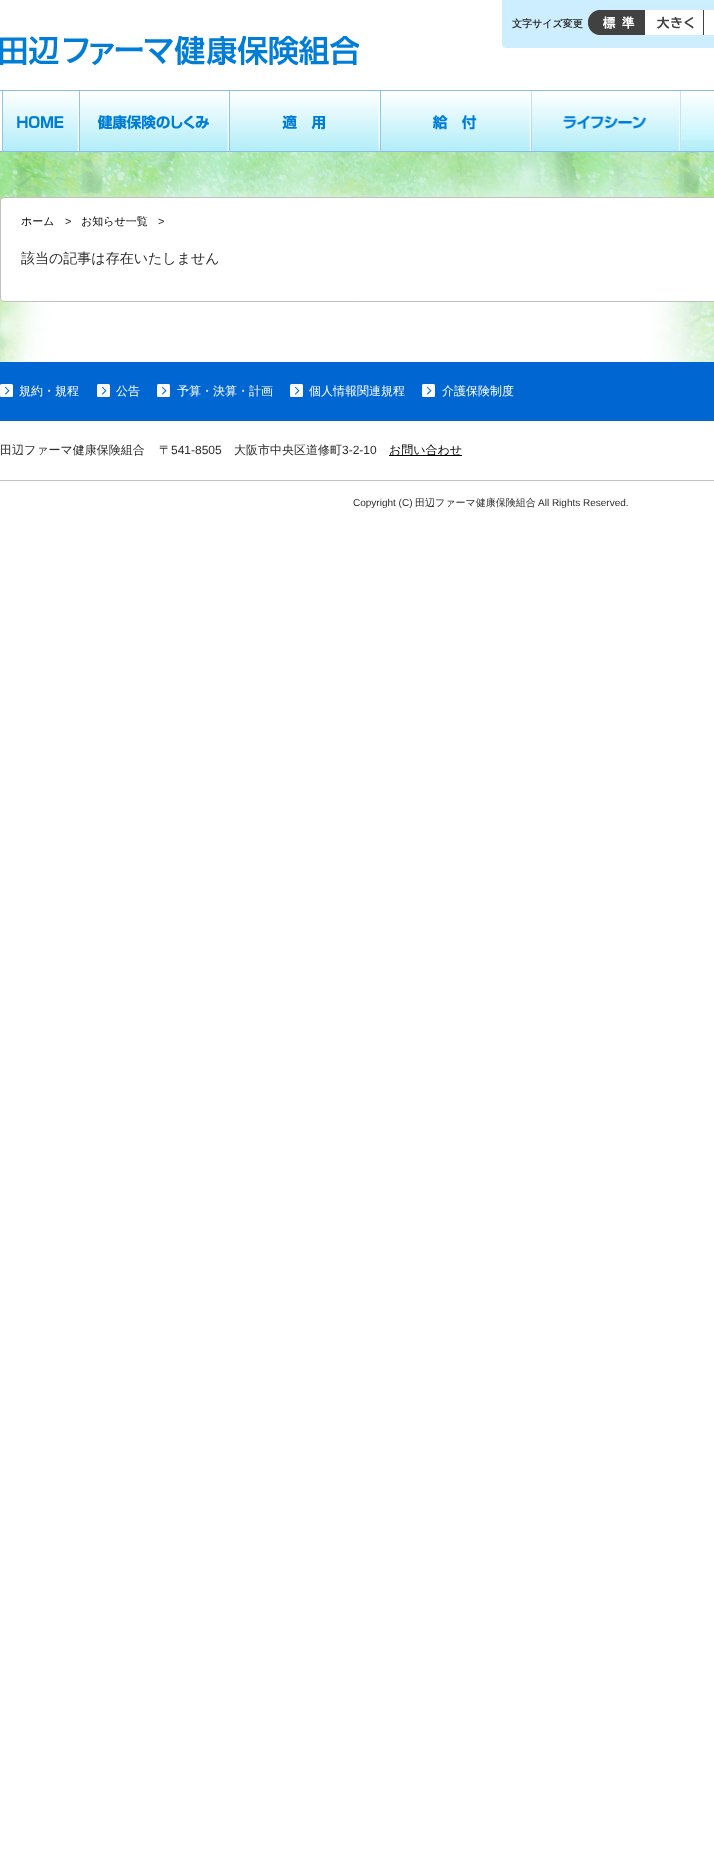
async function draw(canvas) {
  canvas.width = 714;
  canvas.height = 1875;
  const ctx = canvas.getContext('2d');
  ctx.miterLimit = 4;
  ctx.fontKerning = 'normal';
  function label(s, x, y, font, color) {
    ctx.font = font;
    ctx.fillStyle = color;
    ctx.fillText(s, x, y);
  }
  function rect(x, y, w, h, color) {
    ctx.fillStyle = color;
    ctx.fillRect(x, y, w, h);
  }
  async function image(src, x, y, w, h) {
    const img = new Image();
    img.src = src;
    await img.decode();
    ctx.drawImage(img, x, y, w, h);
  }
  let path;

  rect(0, 0, 714, 1875, '#fff');
  ctx.fillStyle = '#cef';
  path = new Path2D('M502 0H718V44C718 46 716 48 714 48H506C504 48 502 46 502 44Z');
  ctx.fill(path);
  label('文字サイズ変更', 512, 27, 'bold 10px WenQuanYi Zen Hei', '#2c2c2c');
  await image('assets/img1.png', 588, 10, 58, 25);
  await image('assets/img2.png', 646, 10, 58, 25);
  rect(704, 10, 10, 25, '#fff');
  await image('assets/img3.png', 0, 36, 359, 29);
  await image('assets/img4.png', 681, 95, 33, 45);
  rect(0, 90, 714, 1, '#8be');
  rect(0, 151, 714, 1, '#8be');
  await image('assets/img5.png', 0, 91, 79, 60);
  await image('assets/img6.png', 79, 91, 150, 60);
  await image('assets/img7.png', 229, 91, 151, 60);
  await image('assets/img8.png', 380, 91, 151, 60);
  await image('assets/img9.png', 531, 91, 150, 60);
  await image('assets/img10.png', 681, 140, 33, 11);
  await image('assets/img11.png', 0, 152, 714, 210);
  ctx.fillStyle = '#fff';
  ctx.beginPath();
  ctx.roundRect(0.5, 197.5, 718, 104, 3.5);
  ctx.fill();
  ctx.strokeStyle = '#c1c1c1';
  ctx.stroke();
  label('ホーム', 21, 225, '500 11px WenQuanYi Zen Hei', '#000');
  label('>', 65, 225, '11px Liberation Sans', '#2c2c2c');
  label('お知らせ一覧', 81, 225, '500 11px WenQuanYi Zen Hei', '#000');
  label('>', 158, 225, '11px Liberation Sans', '#2c2c2c');
  label('該当の記事は存在いたしません', 21, 263, '500 14px WenQuanYi Zen Hei', '#2c2c2c');
  rect(0, 362, 714, 59, '#0066d2');
  await image('assets/img12.png', 0, 384, 13, 13);
  label('規約・規程', 19, 395, '500 12px WenQuanYi Zen Hei', '#fff');
  await image('assets/img12.png', 97, 384, 13, 13);
  label('公告', 116, 395, '500 12px WenQuanYi Zen Hei', '#fff');
  await image('assets/img12.png', 157, 384, 13, 13);
  label('予算・決算・計画', 177, 395, '500 12px WenQuanYi Zen Hei', '#fff');
  await image('assets/img12.png', 290, 384, 13, 13);
  label('個人情報関連規程', 309, 395, '500 12px WenQuanYi Zen Hei', '#fff');
  await image('assets/img12.png', 422, 384, 13, 13);
  label('介護保険制度', 442, 395, '500 12px WenQuanYi Zen Hei', '#fff');
  label('田辺ファーマ健康保険組合', 0, 454, '500 12px WenQuanYi Zen Hei', '#2c2c2c');
  label('〒', 159, 454, '500 12px WenQuanYi Zen Hei', '#2c2c2c');
  label('541-8505', 171, 454, '12px Liberation Sans', '#2c2c2c');
  label('大阪市中央区道修町', 234, 454, '500 12px WenQuanYi Zen Hei', '#2c2c2c');
  label('3-2-10', 342, 454, '12px Liberation Sans', '#2c2c2c');
  rect(389, 455, 73, 1, '#000');
  label('お問い合わせ', 389, 454, '500 12px WenQuanYi Zen Hei', '#000');
  rect(0, 480, 714, 1, '#c1c1c1');
  label('Copyright (C)', 353, 506, '10px Liberation Sans', '#2c2c2c');
  label('田辺ファーマ健康保険組合', 415, 506, '500 10px WenQuanYi Zen Hei', '#2c2c2c');
  label('All Rights Reserved.', 538, 506, '10px Liberation Sans', '#2c2c2c');
}

draw(document.querySelector('canvas'));
